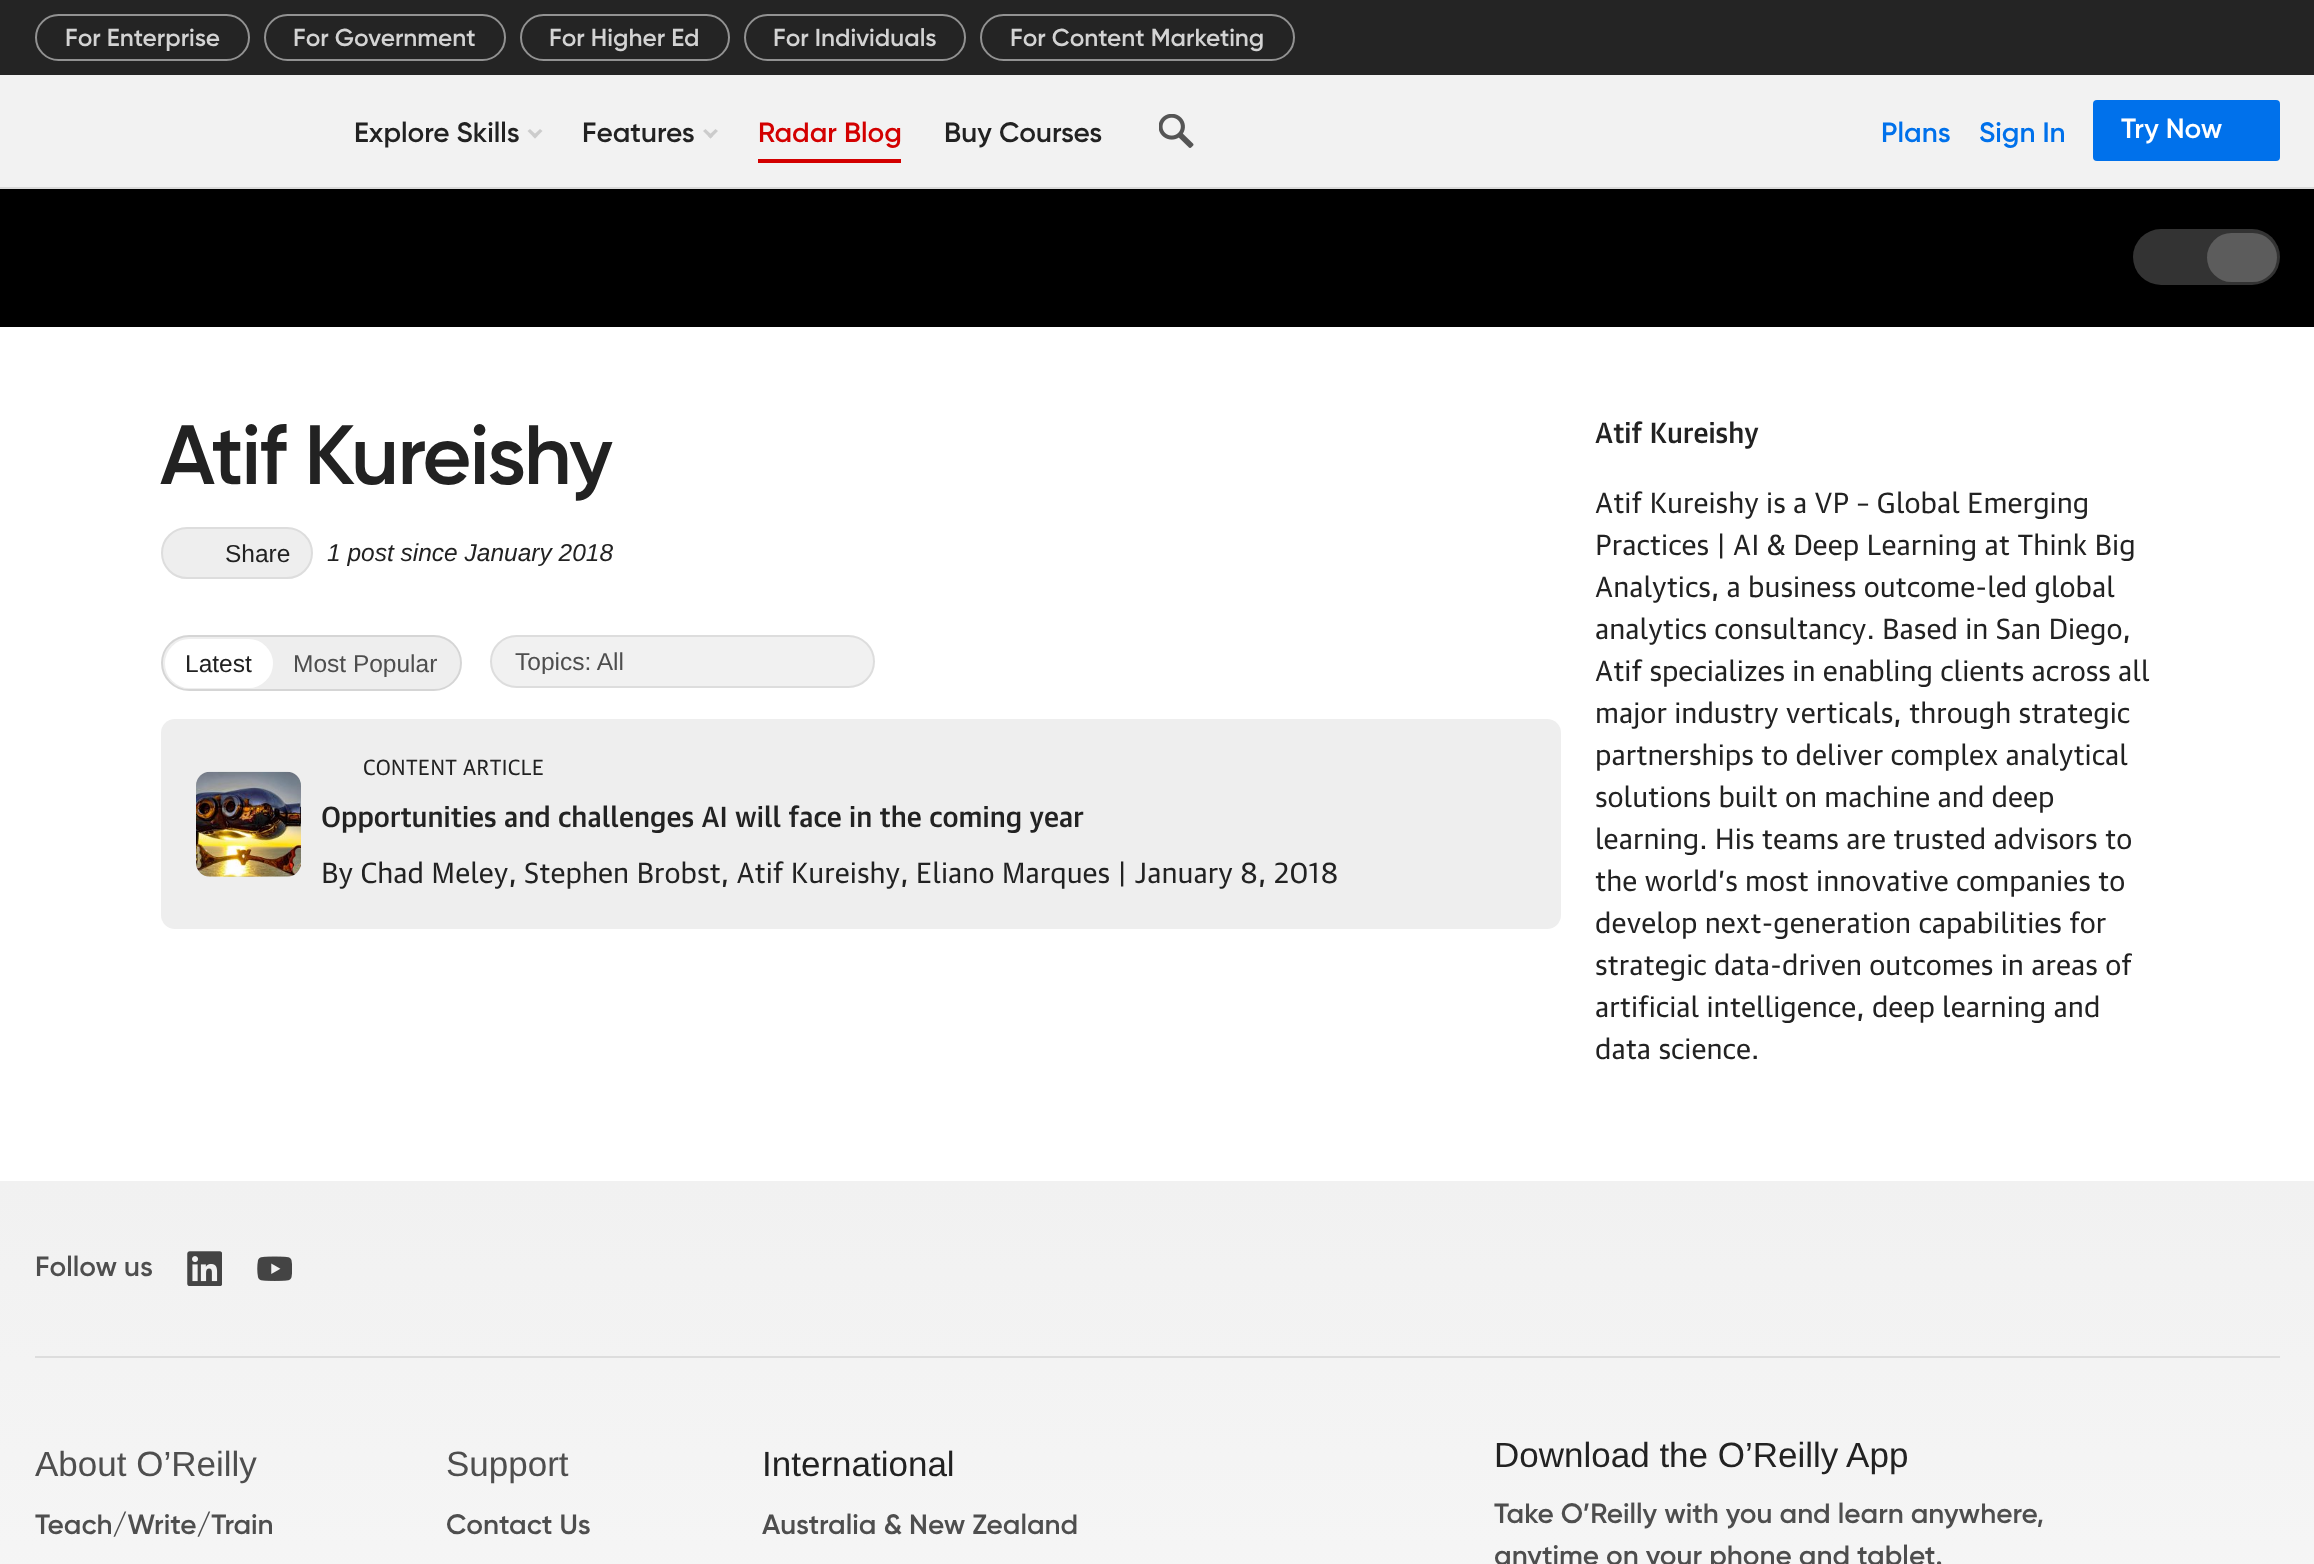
async function draw(canvas) {
  canvas.width = 2314;
  canvas.height = 1564;
  const ctx = canvas.getContext('2d');
  ctx.miterLimit = 4;
  ctx.fontKerning = 'normal';
  function label(s, x, y, font, color) {
    ctx.font = font;
    ctx.fillStyle = color;
    ctx.fillText(s, x, y);
  }
  function rect(x, y, w, h, color) {
    ctx.fillStyle = color;
    ctx.fillRect(x, y, w, h);
  }
  function roundedRect(x, y, w, h, r, color) {
    ctx.fillStyle = color;
    ctx.beginPath();
    ctx.roundRect(x, y, w, h, r);
    ctx.fill();
  }
  async function image(src, x, y, w, h) {
    const img = new Image();
    img.src = src;
    await img.decode();
    ctx.drawImage(img, x, y, w, h);
  }
  let gradient, path;

  rect(0, 0, 2314, 1564, '#fff');
  rect(0, 75, 2314, 112, '#f2f2f2');
  rect(0, 187, 2314, 2, '#dadada');
  rect(0, 0, 2314, 75, '#242424');
  ctx.beginPath();
  ctx.roundRect(36, 15, 213, 45, 22.5);
  ctx.strokeStyle = '#929292';
  ctx.lineWidth = 2;
  ctx.stroke();
  label('For Enterprise', 65, 46, '24.5px gilroy', '#d3d3d3');
  ctx.beginPath();
  ctx.roundRect(265, 15, 240, 45, 22.5);
  ctx.stroke();
  label('For Government', 293, 46, '24.5px gilroy', '#d3d3d3');
  ctx.beginPath();
  ctx.roundRect(521, 15, 208, 45, 22.5);
  ctx.stroke();
  label('For Higher Ed', 549, 46, '24.5px gilroy', '#d3d3d3');
  ctx.beginPath();
  ctx.roundRect(745, 15, 220, 45, 22.5);
  ctx.stroke();
  label('For Individuals', 773, 46, '24.5px gilroy', '#d3d3d3');
  ctx.beginPath();
  ctx.roundRect(981, 15, 313, 45, 22.5);
  ctx.stroke();
  label('For Content Marketing', 1010, 46, '24.5px gilroy', '#d3d3d3');
  label('Explore Skills', 354, 142, '28px gilroy', '#222');
  ctx.fillStyle = '#ccc';
  path = new Path2D('M540 129L542.5 131L535 138.5L532.5 136Z');
  ctx.fill(path);
  path = new Path2D('M530 129L537.5 136L535 138.5L527.5 131Z');
  ctx.fill(path);
  label('Features', 582, 142, '28px gilroy', '#222');
  ctx.fillStyle = '#ccc';
  path = new Path2D('M715.5 129L718 131L710.5 138.5L708 136Z');
  ctx.fill(path);
  path = new Path2D('M705.5 129L713 136L710.5 138.5L703 131Z');
  ctx.fill(path);
  rect(758, 159, 143, 4, '#d30000');
  label('Radar Blog', 758, 142, '28px gilroy', '#d30000');
  label('Buy Courses', 944, 142, '28px gilroy', '#222');
  await image('assets/img1.png', 1159, 114, 35, 34);
  label('Plans', 1881, 142, '28px gilroy', '#0071eb');
  label('Sign In', 1979, 142, '28px gilroy', '#0071eb');
  roundedRect(2093, 100, 187, 61, 4, '#0071eb');
  label('Try Now', 2121, 138, '28px gilroy', '#fff');
  rect(0, 189, 2314, 138, '#000');
  roundedRect(2133, 229, 147, 56, 28, '#333');
  roundedRect(2207, 233, 70, 49, 24.5, '#5c5c5c');
  ctx.letterSpacing = '-1.75px';
  label('Atif Kureishy', 160, 484, '84px gilroy', '#222');
  ctx.fillStyle = '#eee';
  ctx.beginPath();
  ctx.roundRect(162, 528, 150, 50, 25);
  ctx.fill();
  ctx.strokeStyle = '#ddd';
  ctx.stroke();
  ctx.letterSpacing = '0px';
  label('Share', 225, 562, '24.5px Liberation Sans', '#222');
  label('1 post since January 2018', 327, 561, 'italic 24.5px Liberation Sans', '#222');
  roundedRect(161, 635, 301, 56, 28, '#eee');
  ctx.beginPath();
  ctx.roundRect(162, 636, 299, 54, 27);
  ctx.strokeStyle = '#0000001a';
  ctx.stroke();
  roundedRect(165, 639, 108, 49, 24.5, '#fff');
  label('Most Popular', 293, 672, '24.5px Liberation Sans', '#4e4e4e');
  label('Latest', 185, 672, '24.5px Liberation Sans', '#222');
  roundedRect(490, 635, 385, 53, 26.5, '#f1f1f1');
  ctx.beginPath();
  ctx.roundRect(491, 636, 383, 51, 25.5);
  ctx.strokeStyle = '#3333331a';
  ctx.stroke();
  ctx.save();
  ctx.beginPath();
  ctx.rect(515, 649, 311, 25);
  ctx.clip();
  label('Topics: All', 515, 670, '24.5px Liberation Sans', '#4e4e4e');
  ctx.restore();
  roundedRect(161, 719, 1400, 210, 14, '#eee');
  await image('assets/img2.png', 196, 771, 105, 106);
  label('CONTENT ARTICLE', 363, 775, '21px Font', '#222');
  label('Opportunities and challenges AI will face in the coming year', 321, 827, '500 28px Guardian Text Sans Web', '#222');
  label('By Chad Meley, Stephen Brobst, Atif Kureishy, Eliano Marques | January 8, 2018', 321, 883, '28px Font', '#222');
  label('Atif Kureishy', 1595, 443, '500 28px Guardian Text Sans Web', '#222');
  label('Atif Kureishy is a VP – Global Emerging', 1595, 513, '28px Font', '#222');
  label('Practices | AI & Deep Learning at Think Big', 1595, 555, '28px Font', '#222');
  label('Analytics, a business outcome-led global', 1595, 597, '28px Font', '#222');
  label('analytics consultancy. Based in San Diego,', 1595, 639, '28px Font', '#222');
  label('Atif specializes in enabling clients across all', 1595, 681, '28px Font', '#222');
  label('major industry verticals, through strategic', 1595, 723, '28px Font', '#222');
  label('partnerships to deliver complex analytical', 1595, 765, '28px Font', '#222');
  label('solutions built on machine and deep', 1595, 807, '28px Font', '#222');
  label('learning. His teams are trusted advisors to', 1595, 849, '28px Font', '#222');
  label('the world’s most innovative companies to', 1595, 891, '28px Font', '#222');
  label('develop next-generation capabilities for', 1595, 933, '28px Font', '#222');
  label('strategic data-driven outcomes in areas of', 1595, 975, '28px Font', '#222');
  label('artificial intelligence, deep learning and', 1595, 1017, '28px Font', '#222');
  label('data science.', 1595, 1059, '28px Font', '#222');
  gradient = ctx.createLinearGradient(1158, 1181, 1158, 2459);
  gradient.addColorStop(0, '#f1f1f1');
  gradient.addColorStop(1, '#fff');
  ctx.fillStyle = gradient;
  ctx.fillRect(0, 1181, 2314, 383);
  rect(35, 1356, 2245, 2, '#ddd');
  label('Follow us', 35, 1276, '28px gilroy', '#4e4e4e');
  await image('assets/img3.png', 187, 1251, 35, 35);
  await image('assets/img4.png', 257, 1256, 35, 25);
  label('About O’Reilly', 35, 1476, '35px Liberation Sans', '#4e4e4e');
  label('Teach/Write/Train', 35, 1534, '28px gilroy', '#4e4e4e');
  label('Support', 446, 1476, '35px Liberation Sans', '#4e4e4e');
  label('Contact Us', 446, 1534, '28px gilroy', '#4e4e4e');
  label('International', 762, 1476, '35px Liberation Sans', '#222');
  label('Australia & New Zealand', 762, 1534, '28px gilroy', '#4e4e4e');
  label('Download the O’Reilly App', 1494, 1467, '35px Liberation Sans', '#222');
  label('Take O’Reilly with you and learn anywhere,', 1494, 1523, '28px gilroy', '#4e4e4e');
  label('anytime on your phone and tablet.', 1494, 1565, '28px gilroy', '#4e4e4e');
}

draw(document.querySelector('canvas'));
